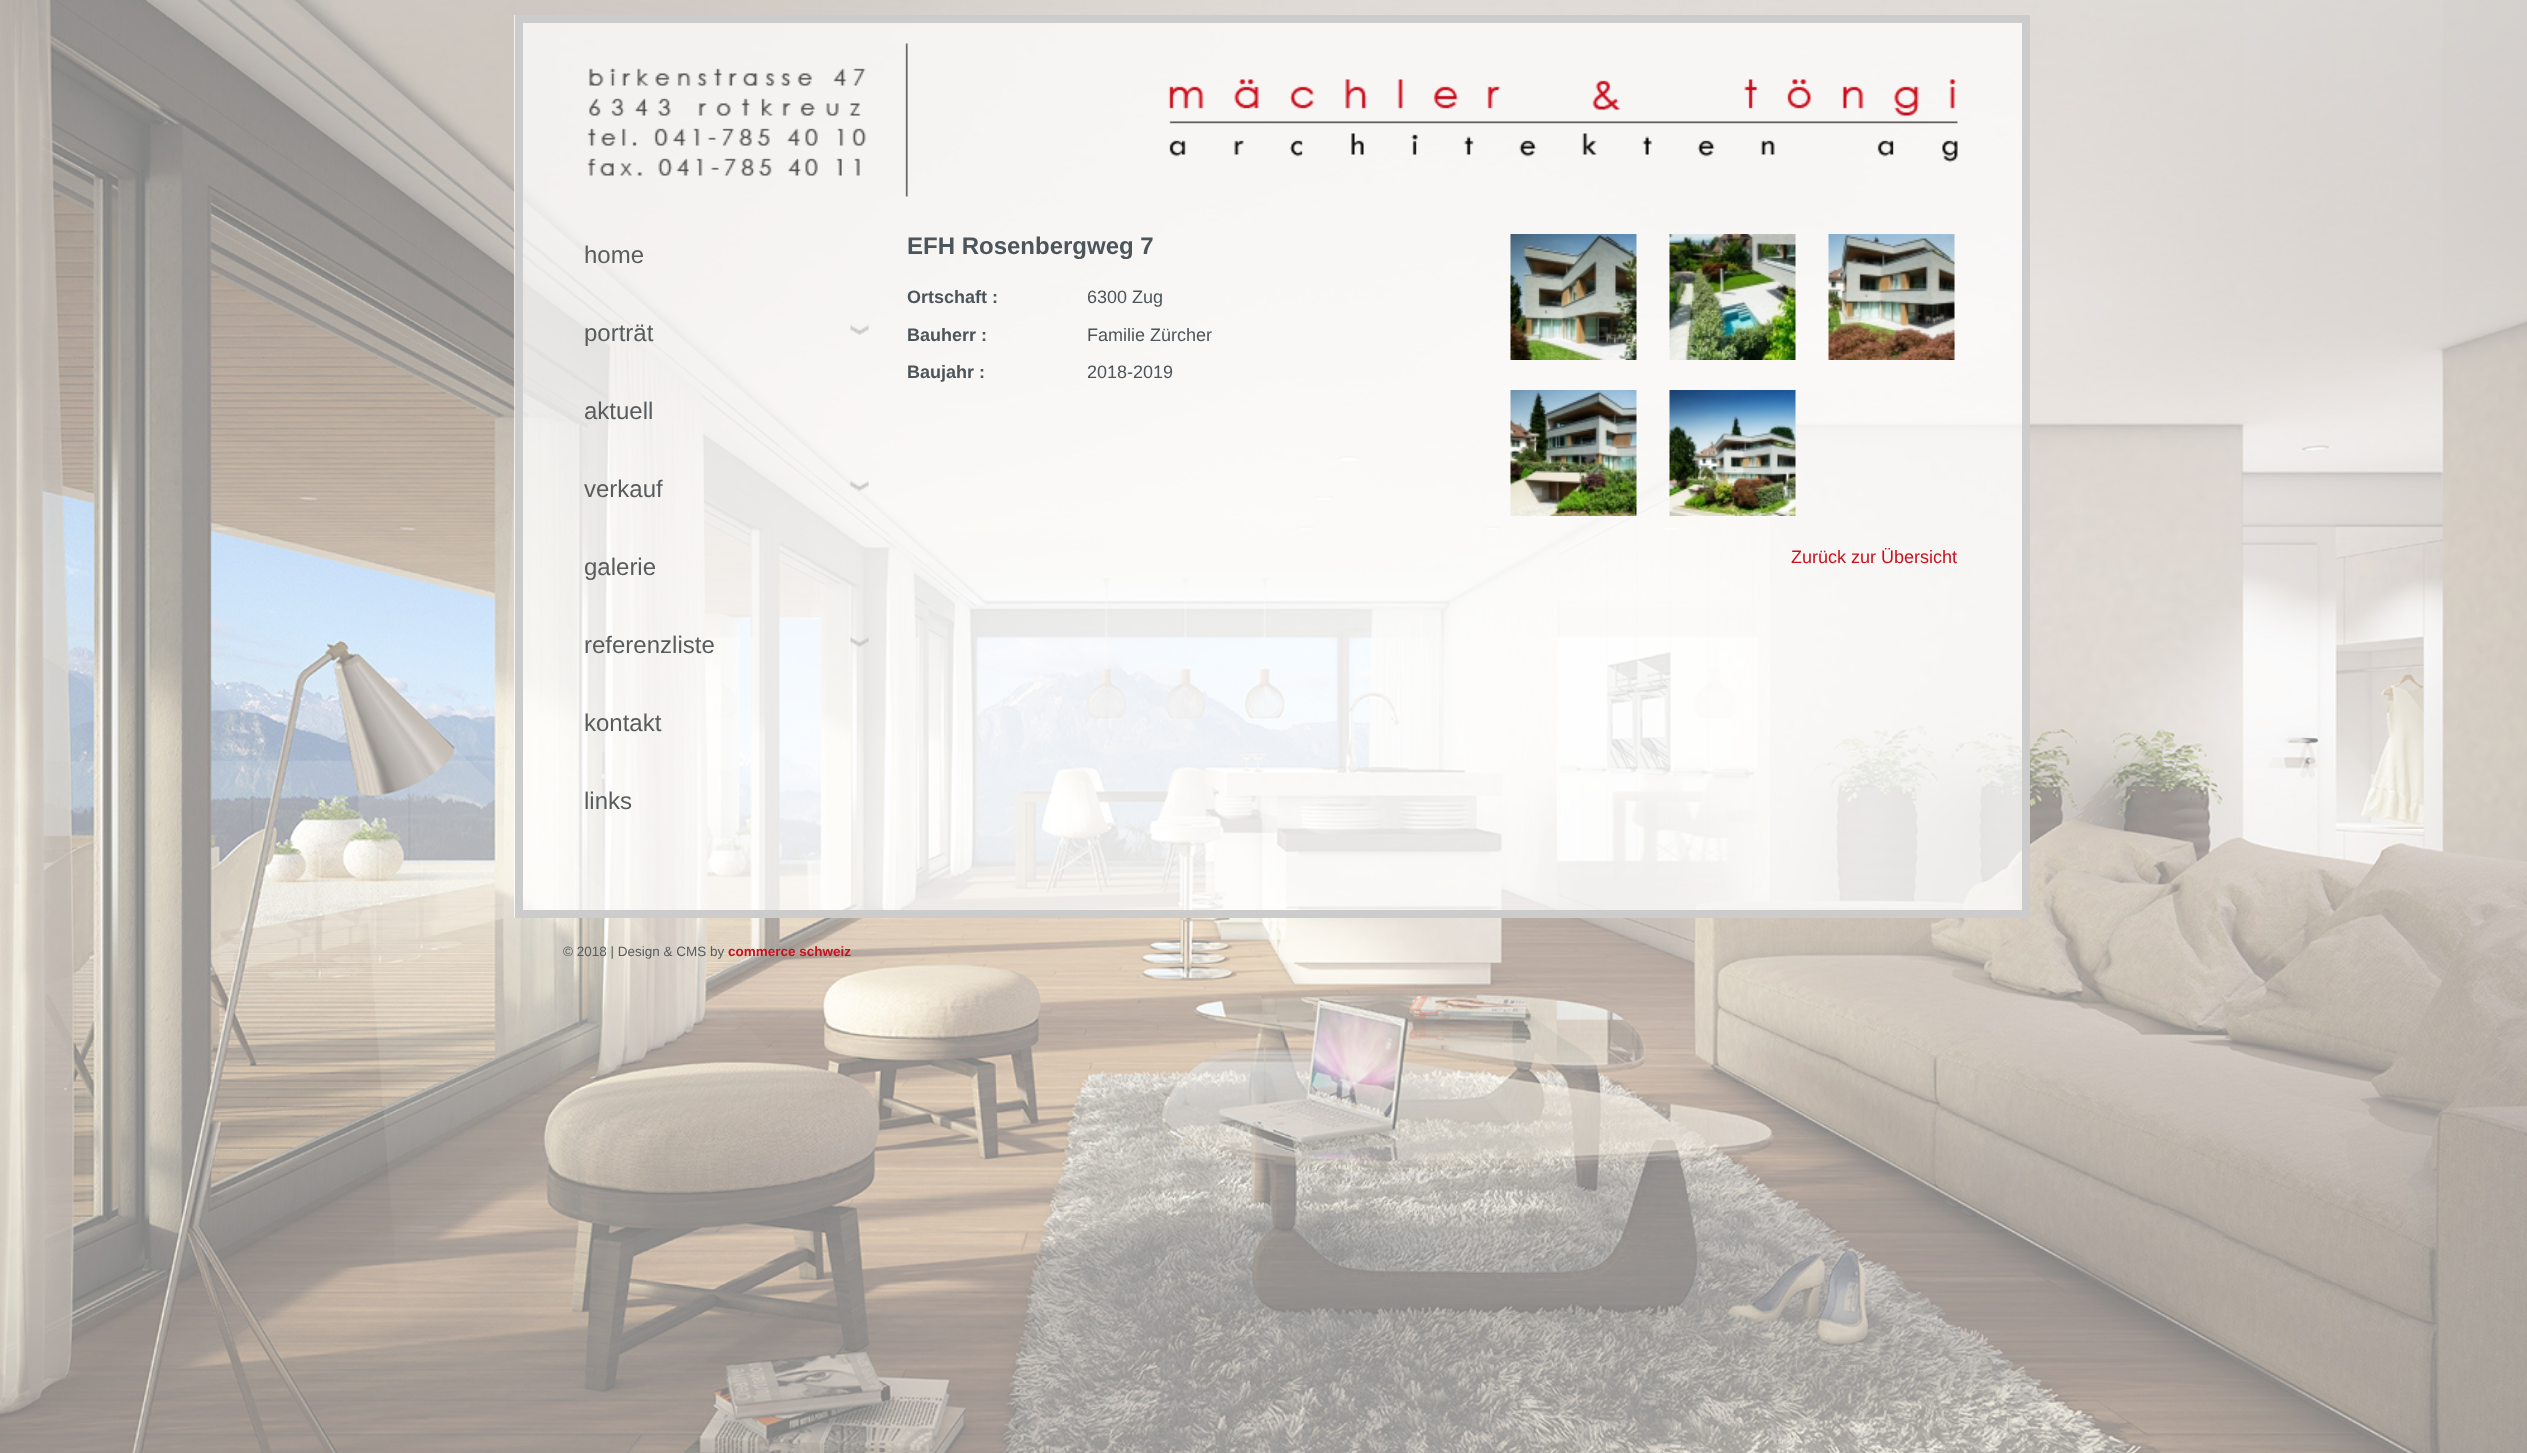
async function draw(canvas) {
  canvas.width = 2527;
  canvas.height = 1453;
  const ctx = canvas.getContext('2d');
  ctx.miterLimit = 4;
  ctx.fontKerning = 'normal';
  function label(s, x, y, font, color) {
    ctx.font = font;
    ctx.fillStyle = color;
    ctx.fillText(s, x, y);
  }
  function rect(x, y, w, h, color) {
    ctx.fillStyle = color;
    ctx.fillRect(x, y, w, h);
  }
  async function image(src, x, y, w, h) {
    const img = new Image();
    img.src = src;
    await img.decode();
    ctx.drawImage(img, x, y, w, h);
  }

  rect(0, 0, 2527, 1453, '#fff');
  await image('assets/img1.png', 0, 0, 2527, 1453);
  rect(514, 15, 1508, 903, '#ffffffbf');
  ctx.strokeStyle = '#ccc';
  ctx.lineWidth = 8;
  ctx.strokeRect(519, 19, 1507, 895);
  await image('assets/img2.png', 587, 43, 1371, 154);
  label('home', 584, 263, '24px Liberation Sans', '#585c5d');
  await image('assets/img3.png', 850, 325, 19, 10);
  label('porträt', 584, 341, '24px Liberation Sans', '#585c5d');
  label('aktuell', 584, 419, '24px Liberation Sans', '#585c5d');
  await image('assets/img4.png', 850, 481, 19, 10);
  label('verkauf', 584, 497, '24px Liberation Sans', '#585c5d');
  label('galerie', 584, 575, '24px Liberation Sans', '#585c5d');
  await image('assets/img5.png', 850, 637, 19, 10);
  label('referenzliste', 584, 653, '24px Liberation Sans', '#585c5d');
  label('kontakt', 584, 731, '24px Liberation Sans', '#585c5d');
  label('links', 584, 809, '24px Liberation Sans', '#585c5d');
  label('EFH Rosenbergweg 7', 907, 254, 'bold 24px Liberation Sans', '#4c5559');
  label('Ortschaft :', 907, 303, 'bold 18px Liberation Sans', '#4c5559');
  ctx.save();
  ctx.beginPath();
  ctx.rect(1088, 287, 390, 22);
  ctx.clip();
  label('6300 Zug', 1087, 303, '18px Liberation Sans', '#4c5559');
  ctx.restore();
  label('Bauherr :', 907, 341, 'bold 18px Liberation Sans', '#4c5559');
  label('Familie Zürcher', 1087, 341, '18px Liberation Sans', '#4c5559');
  label('Baujahr :', 907, 378, 'bold 18px Liberation Sans', '#4c5559');
  ctx.save();
  ctx.beginPath();
  ctx.rect(1088, 362, 390, 22);
  ctx.clip();
  label('2018-2019', 1087, 378, '18px Liberation Sans', '#4c5559');
  ctx.restore();
  await image('assets/img6.png', 1510, 234, 127, 126);
  await image('assets/img7.png', 1669, 234, 127, 126);
  await image('assets/img8.png', 1828, 234, 127, 126);
  await image('assets/img9.png', 1510, 390, 127, 126);
  await image('assets/img10.png', 1669, 390, 127, 126);
  label('Zurück zur Übersicht', 1791, 563, '18px Liberation Sans', '#c9111e');
  label('© 2018 | Design & CMS by', 563, 956, '13.5px Liberation Sans', '#585c5d');
  label('commerce schweiz', 728, 956, 'bold 13.5px Liberation Sans', '#c9111e');
}

draw(document.querySelector('canvas'));
